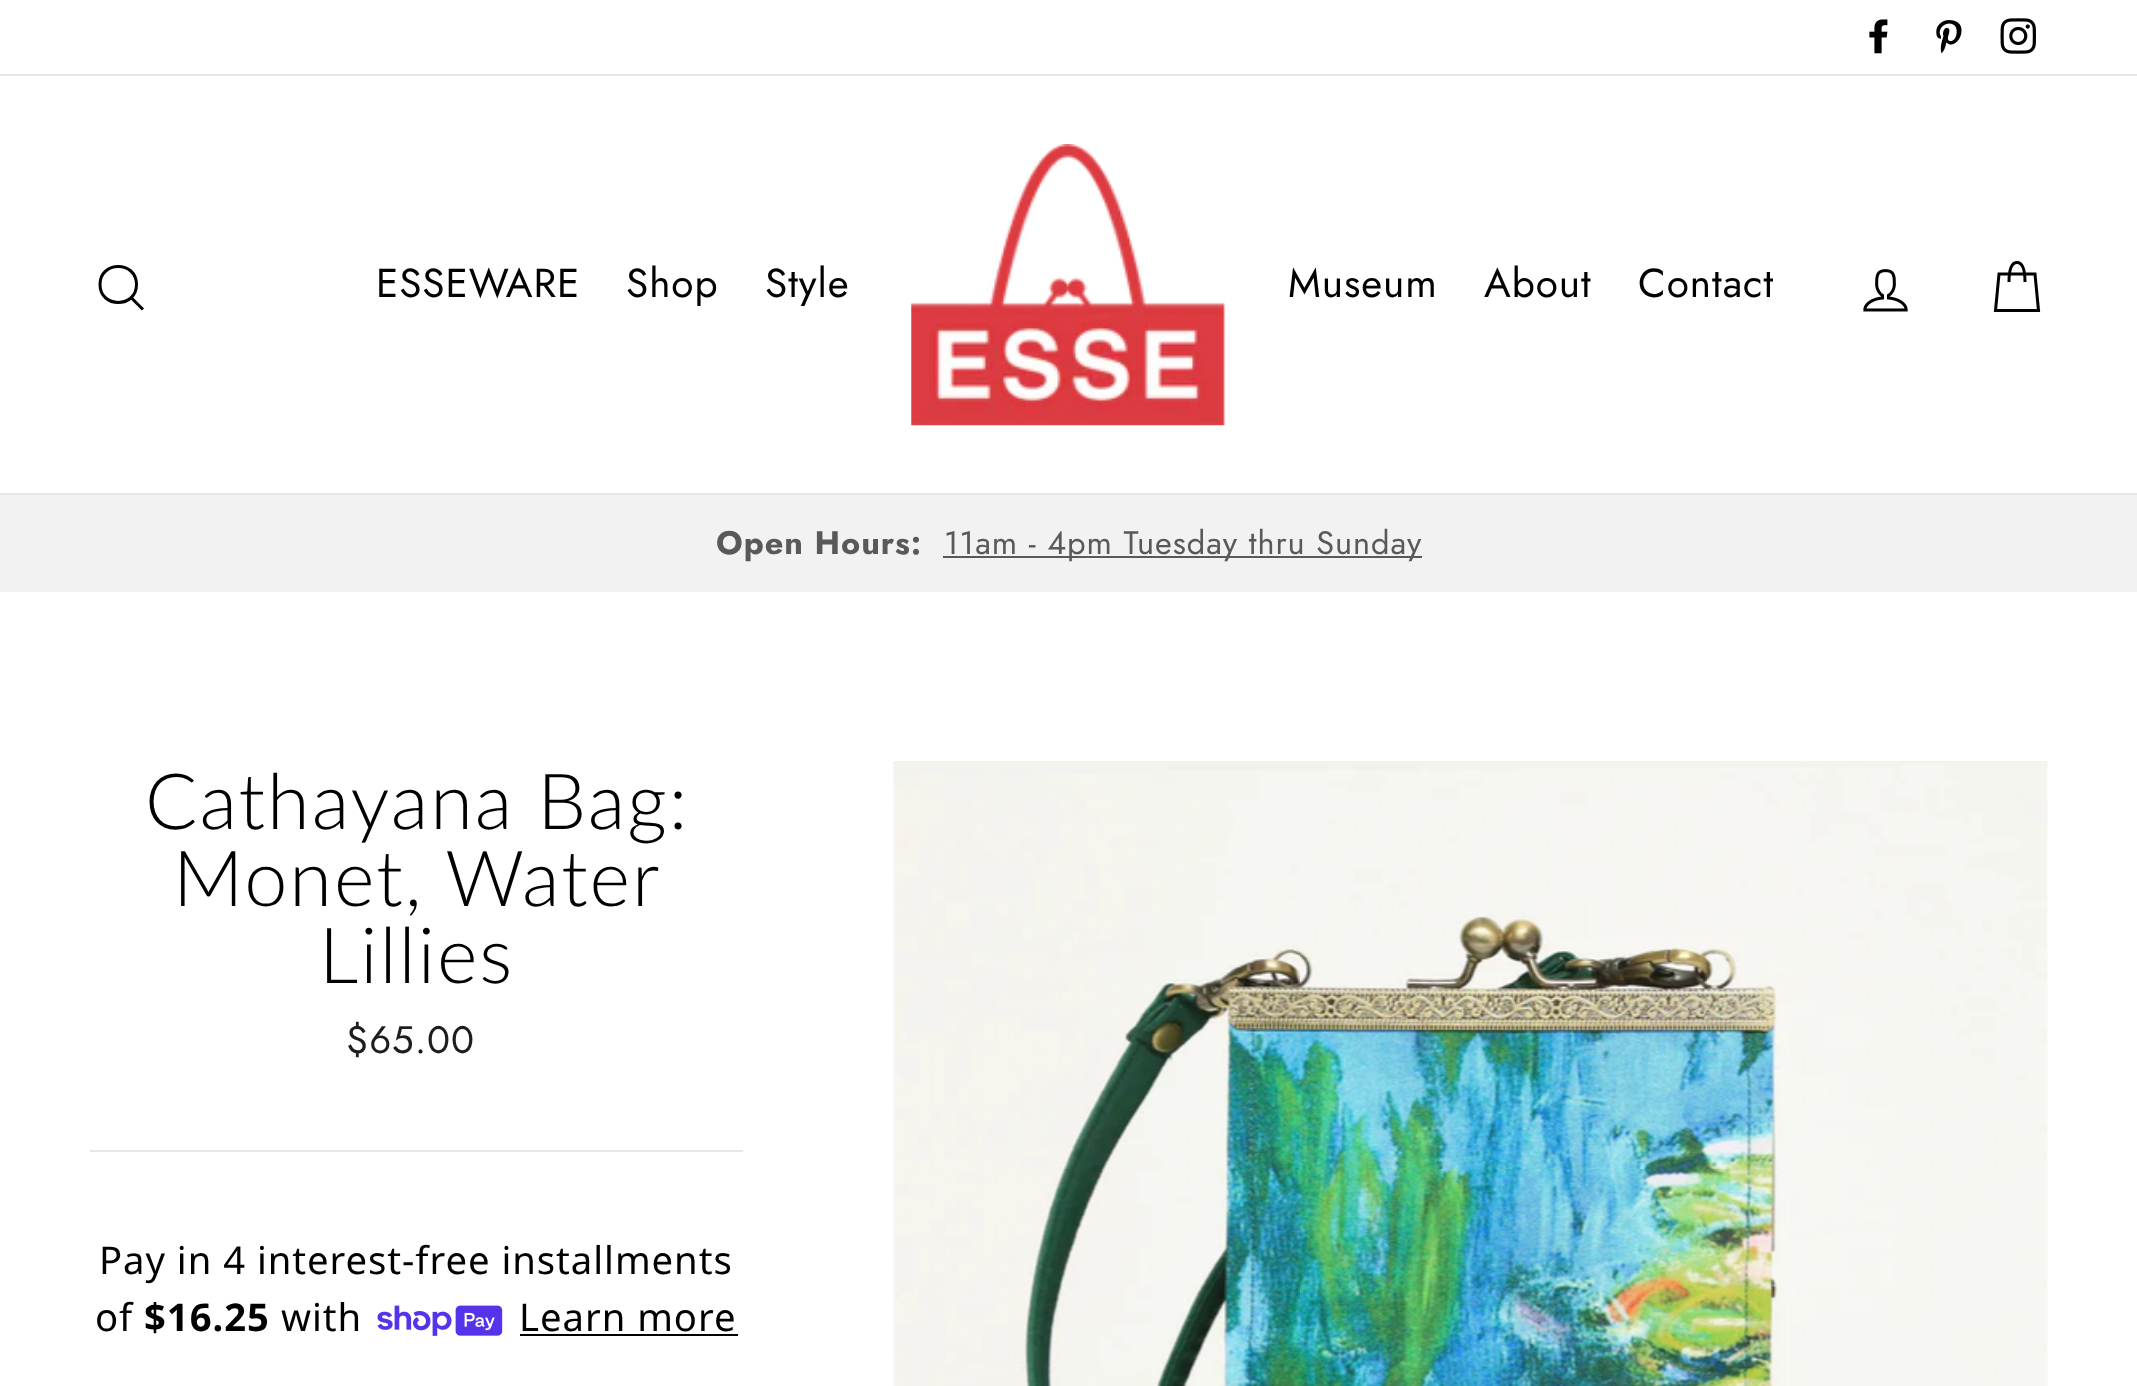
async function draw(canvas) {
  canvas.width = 2137;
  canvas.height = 1386;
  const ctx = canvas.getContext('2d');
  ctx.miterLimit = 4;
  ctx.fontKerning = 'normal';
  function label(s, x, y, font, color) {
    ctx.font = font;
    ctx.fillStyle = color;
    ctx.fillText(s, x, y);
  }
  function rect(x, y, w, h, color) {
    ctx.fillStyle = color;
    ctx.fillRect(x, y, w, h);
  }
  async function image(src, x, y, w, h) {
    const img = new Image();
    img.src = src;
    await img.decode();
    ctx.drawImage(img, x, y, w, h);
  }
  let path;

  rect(0, 0, 2137, 1386, '#fff');
  await image('assets/img1.png', 1869, 19, 19, 35);
  await image('assets/img2.png', 1936, 20, 26, 34);
  await image('assets/img3.png', 2000, 18, 36, 36);
  rect(0, 74, 2137, 2, '#e6e6e6');
  rect(0, 493, 2137, 2, '#e8e8e1');
  path = new Path2D('M136.5 284.5C136.5 308.5 100 308.5 100 284.5C100 260.5 136.5 260.5 136.5 284.5ZM143 309.5L131.5 298');
  ctx.strokeStyle = '#000';
  ctx.lineWidth = 3;
  ctx.stroke(path);
  ctx.letterSpacing = '0.95px';
  label('ESSEWARE', 376, 297, '40.5px Jost', '#000');
  label('Shop', 626, 297, '40.5px Jost', '#000');
  label('Style', 765, 297, '40.5px Jost', '#000');
  await image('assets/img4.png', 911, 144, 315, 282);
  label('Museum', 1288, 297, '40.5px Jost', '#000');
  label('About', 1484, 297, '40.5px Jost', '#000');
  label('Contact', 1638, 297, '40.5px Jost', '#000');
  await image('assets/img5.png', 1863, 269, 45, 43);
  path = new Path2D('M2009 282C2009 266.5 2012.5 262.5 2017 262.5C2021.5 262.5 2025 266.5 2025 282M1999 274H2035L2038.5 310.5H1995.5Z');
  ctx.stroke(path);
  rect(0, 495, 2137, 97, '#f2f2f2');
  label('Open Hours:', 716, 554, 'bold 32.5px Jost', '#595959');
  rect(943, 556, 479, 2, '#595959');
  label('11am - 4pm Tuesday thru Sunday', 944, 554, '32.5px Jost', '#595959');
  ctx.letterSpacing = '2px';
  label('Cathayana Bag:', 145, 829, '300 77.5px Lato', '#000');
  label('Monet, Water', 173, 906, '300 77.5px Lato', '#000');
  label('Lillies', 319, 983, '300 77.5px Lato', '#000');
  ctx.letterSpacing = '0.95px';
  label('$65.00', 346, 1053, '38.25px Jost', '#1c1d1d');
  rect(90, 1150, 653, 2, '#e8e8e1');
  label('Pay in 4 interest-free installments', 99, 1274, '38.25px Noto Sans', '#000');
  label('of', 95, 1331, '38.25px Noto Sans', '#000');
  label('$16.25', 144, 1331, 'bold 38.25px Noto Sans', '#000');
  label('with', 281, 1331, '38.25px Noto Sans', '#000');
  await image('assets/img6.png', 377, 1305, 126, 31);
  label('Learn more', 519, 1331, '38.25px Noto Sans', '#000');
  rect(520, 1334, 218, 2, '#000');
  await image('assets/img7.png', 893, 761, 1155, 625);
}

draw(document.querySelector('canvas'));
